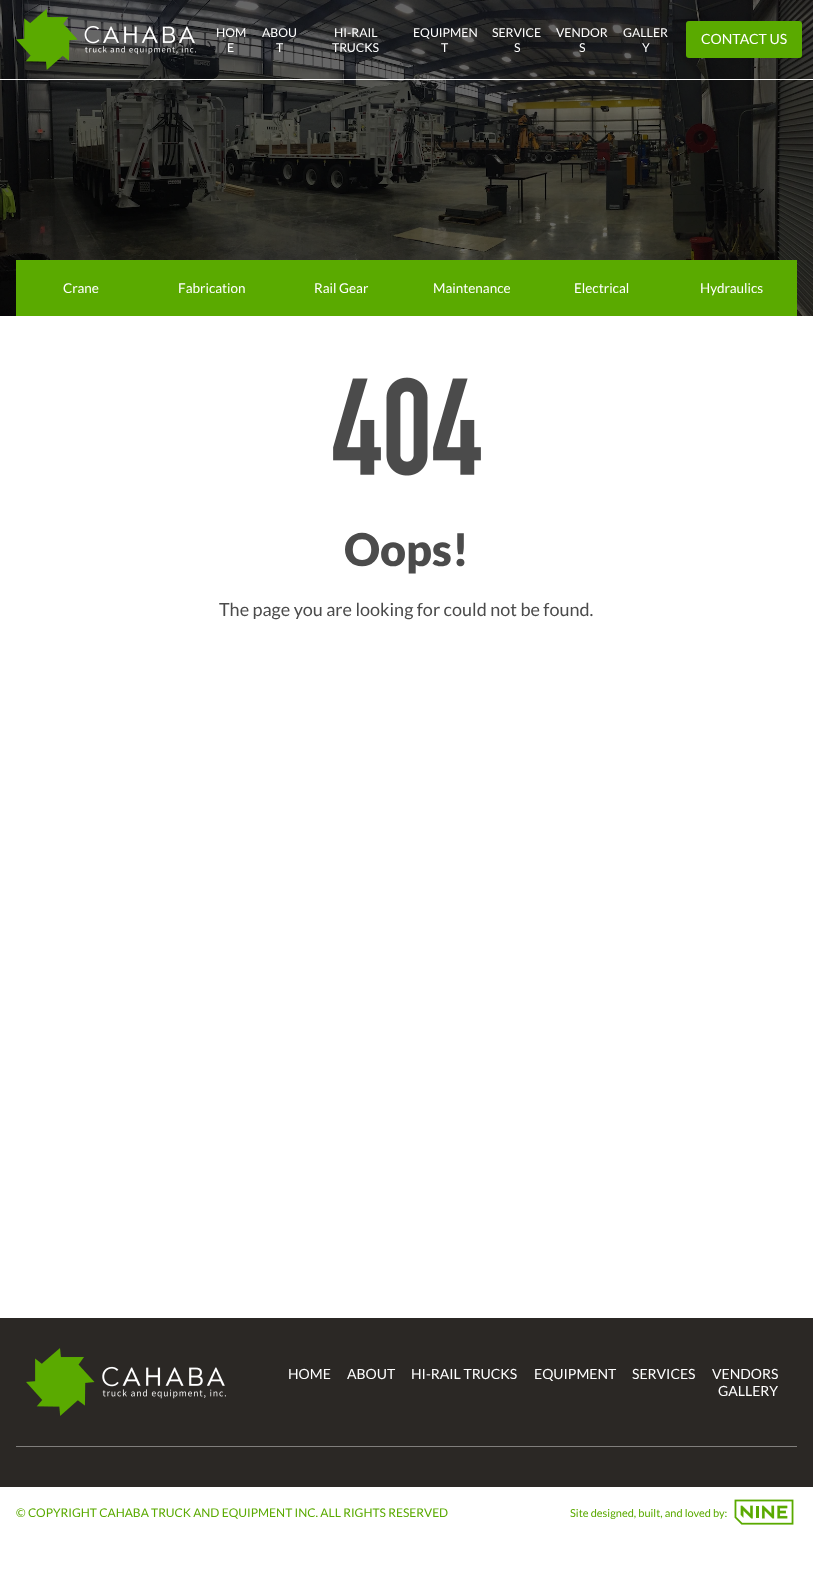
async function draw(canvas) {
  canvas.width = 813;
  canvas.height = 1582;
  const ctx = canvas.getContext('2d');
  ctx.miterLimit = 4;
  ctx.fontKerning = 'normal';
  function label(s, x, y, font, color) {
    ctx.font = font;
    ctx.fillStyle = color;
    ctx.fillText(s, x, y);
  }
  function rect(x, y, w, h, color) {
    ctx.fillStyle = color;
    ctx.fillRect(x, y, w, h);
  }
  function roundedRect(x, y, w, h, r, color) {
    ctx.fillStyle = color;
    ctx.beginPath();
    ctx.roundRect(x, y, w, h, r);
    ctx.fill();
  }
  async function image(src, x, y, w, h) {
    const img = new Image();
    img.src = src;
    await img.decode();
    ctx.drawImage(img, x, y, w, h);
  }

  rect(0, 0, 813, 1582, '#fff');
  await image('assets/img2.png', 0, 0, 813, 316);
  rect(0, 79, 813, 1, '#fff');
  await image('assets/img1.png', 16, 9, 180, 61);
  label('HOM', 216, 37, '12.25px Lato', '#fff');
  label('E', 227, 52, '12.25px Lato', '#fff');
  label('ABOU', 262, 37, '12.25px Lato', '#fff');
  label('T', 276, 52, '12.25px Lato', '#fff');
  label('HI-RAIL', 334, 37, '12.25px Lato', '#fff');
  label('TRUCKS', 332, 52, '12.25px Lato', '#fff');
  label('EQUIPMEN', 413, 37, '12.25px Lato', '#fff');
  label('T', 441, 52, '12.25px Lato', '#fff');
  label('SERVICE', 492, 37, '12.25px Lato', '#fff');
  label('S', 514, 52, '12.25px Lato', '#fff');
  label('VENDOR', 556, 37, '12.25px Lato', '#fff');
  label('S', 579, 52, '12.25px Lato', '#fff');
  label('GALLER', 623, 37, '12.25px Lato', '#fff');
  label('Y', 642, 52, '12.25px Lato', '#fff');
  roundedRect(686, 21, 116, 37, 3, '#5aaa00');
  label('CONTACT US', 701, 44, '14px Lato', '#fff');
  rect(16, 260, 781, 56, '#5aaa00');
  label('Crane', 63, 293, '13.5px Lato', '#fff');
  label('Fabrication', 178, 293, '13.5px Lato', '#fff');
  label('Rail Gear', 314, 293, '13.5px Lato', '#fff');
  label('Maintenance', 433, 293, '13.5px Lato', '#fff');
  label('Electrical', 574, 293, '13.5px Lato', '#fff');
  label('Hydraulics', 700, 293, '13.5px Lato', '#fff');
  await image('assets/img3.png', 333, 377, 148, 99);
  label('Oops!', 344, 566, '900 45px Lato', '#4b4b4b');
  label('The page you are looking for could not be found.', 219, 616, '18px Lato', '#4b4b4b');
  rect(0, 1318, 813, 169, '#2b2825');
  rect(16, 1446, 781, 1, '#807e7c');
  await image('assets/img4.png', 26, 1348, 200, 68);
  label('HOME', 288, 1379, '14px Lato', '#fff');
  label('ABOUT', 347, 1379, '14px Lato', '#fff');
  label('HI-RAIL TRUCKS', 411, 1379, '14px Lato', '#fff');
  label('EQUIPMENT', 534, 1379, '14px Lato', '#fff');
  label('SERVICES', 632, 1379, '14px Lato', '#fff');
  label('VENDORS', 712, 1379, '14px Lato', '#fff');
  label('GALLERY', 718, 1396, '14px Lato', '#fff');
  label('© COPYRIGHT CAHABA TRUCK AND EQUIPMENT INC. ALL RIGHTS RESERVED', 16, 1517, '12px Lato', '#5aaa00');
  label('Site designed, built, and loved by:', 570, 1517, '11px Lato', '#5aaa00');
  await image('assets/img5.png', 734, 1499, 60, 26);
}

draw(document.querySelector('canvas'));
